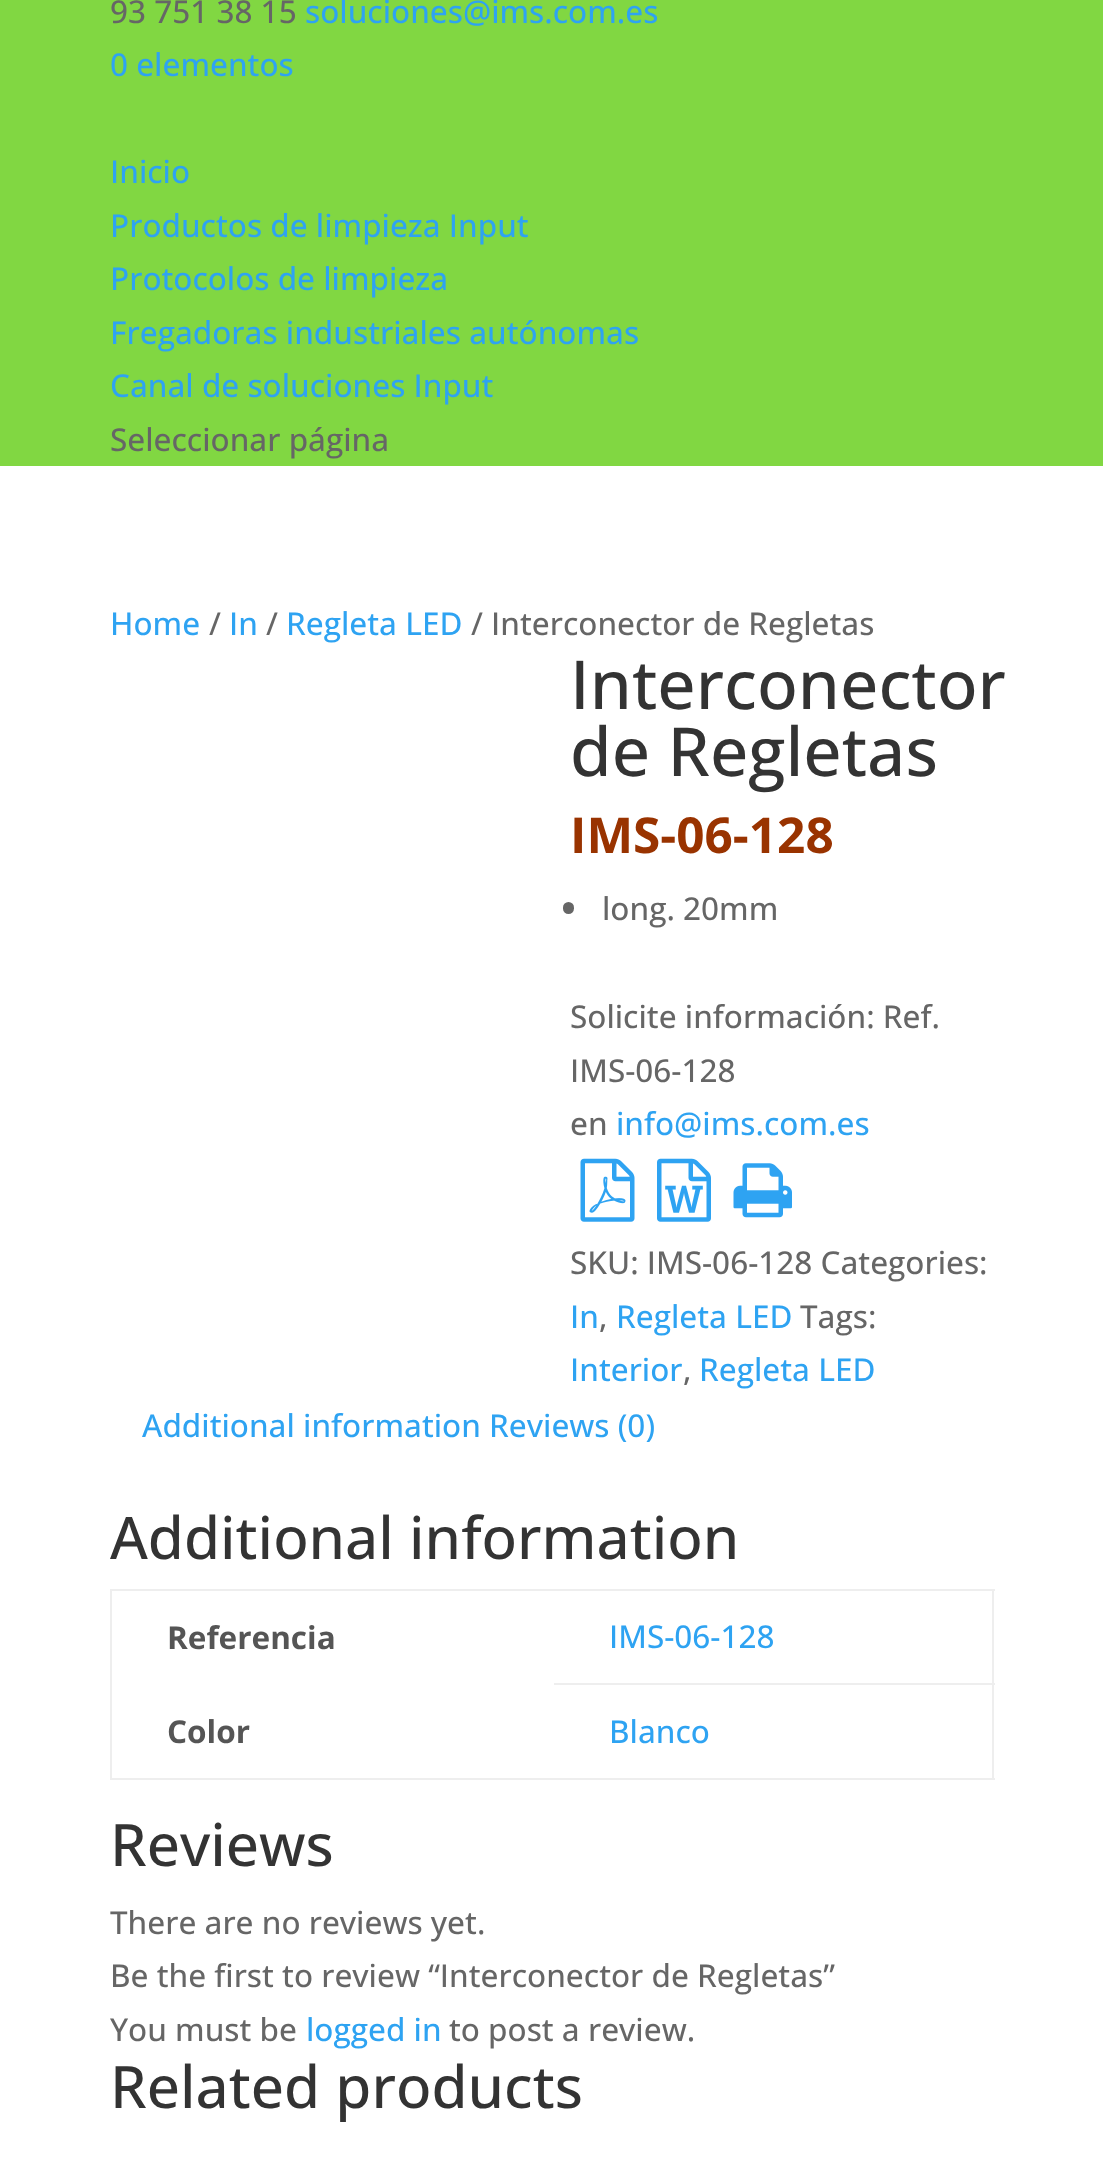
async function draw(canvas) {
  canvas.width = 1103;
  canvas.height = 2160;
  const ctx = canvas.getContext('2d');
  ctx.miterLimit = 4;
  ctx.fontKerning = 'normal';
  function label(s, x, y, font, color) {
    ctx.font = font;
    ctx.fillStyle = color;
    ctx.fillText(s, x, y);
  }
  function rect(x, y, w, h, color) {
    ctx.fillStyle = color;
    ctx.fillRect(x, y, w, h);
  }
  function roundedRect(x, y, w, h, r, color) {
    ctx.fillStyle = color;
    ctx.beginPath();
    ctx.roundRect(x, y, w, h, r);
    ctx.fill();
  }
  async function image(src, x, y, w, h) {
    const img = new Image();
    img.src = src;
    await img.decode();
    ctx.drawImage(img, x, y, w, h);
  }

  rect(0, 0, 1103, 2160, '#81d742');
  label('93 751 38 15', 110, 23, '500 31.5px Open Sans', '#666');
  label('soluciones@ims.com.es', 305, 23, '500 31.5px Open Sans', '#2ea3f2');
  label('0 elementos', 110, 76, '500 31.5px Open Sans', '#2ea3f2');
  label('Inicio', 110, 183, '500 31.5px Open Sans', '#2ea3f2');
  label('Productos de limpieza Input', 110, 237, '500 31.5px Open Sans', '#2ea3f2');
  label('Protocolos de limpieza', 110, 290, '500 31.5px Open Sans', '#2ea3f2');
  label('Fregadoras industriales autónomas', 110, 344, '500 31.5px Open Sans', '#2ea3f2');
  label('Canal de soluciones Input', 110, 397, '500 31.5px Open Sans', '#2ea3f2');
  label('Seleccionar página', 110, 451, '500 31.5px Open Sans', '#666');
  rect(0, 466, 1103, 1694, '#fff');
  label('Home', 110, 635, '500 31.5px Open Sans', '#2ea3f2');
  label('/', 209, 635, '500 31.5px Open Sans', '#666');
  label('In', 229, 635, '500 31.5px Open Sans', '#2ea3f2');
  label('/', 266, 635, '500 31.5px Open Sans', '#666');
  label('Regleta LED', 286, 635, '500 31.5px Open Sans', '#2ea3f2');
  label('/ Interconector de Regletas', 471, 635, '500 31.5px Open Sans', '#666');
  label('Interconector', 570, 709, '500 67.5px Open Sans', '#333');
  label('de Regletas', 570, 776, '500 67.5px Open Sans', '#333');
  label('IMS-06-128', 570, 853, 'bold 49.5px Open Sans', '#930');
  roundedRect(563, 902, 11, 12, 5.5, '#666');
  label('long. 20mm', 602, 920, '500 31.5px Open Sans', '#666');
  label('Solicite información: Ref.', 570, 1028, '500 31.5px Open Sans', '#666');
  label('IMS-06-128', 570, 1082, '500 31.5px Open Sans', '#666');
  label('en', 570, 1135, '500 31.5px Open Sans', '#666');
  label('info@ims.com.es', 616, 1135, '500 31.5px Open Sans', '#2ea3f2');
  await image('assets/img1.png', 580, 1158, 55, 64);
  await image('assets/img2.png', 657, 1158, 54, 64);
  await image('assets/img3.png', 733, 1163, 59, 55);
  label('SKU: IMS-06-128 Categories:', 570, 1274, '500 31.5px Open Sans', '#666');
  label('In', 570, 1328, '500 31.5px Open Sans', '#2ea3f2');
  label(',', 599, 1328, '500 31.5px Open Sans', '#666');
  label('Regleta LED', 616, 1328, '500 31.5px Open Sans', '#2ea3f2');
  label('Tags:', 800, 1328, '500 31.5px Open Sans', '#666');
  label('Interior', 570, 1381, '500 31.5px Open Sans', '#2ea3f2');
  label(',', 683, 1381, '500 31.5px Open Sans', '#666');
  label('Regleta LED', 699, 1381, '500 31.5px Open Sans', '#2ea3f2');
  label('Additional information Reviews (0)', 142, 1437, '500 31.5px Open Sans', '#2ea3f2');
  label('Additional information', 110, 1559, '500 58.5px Open Sans', '#333');
  rect(110, 1589, 885, 2, '#eee');
  rect(992, 1589, 2, 191, '#eee');
  rect(110, 1778, 885, 2, '#eee');
  rect(110, 1589, 2, 191, '#eee');
  label('Referencia', 167, 1649, 'bold 31.5px Open Sans', '#555');
  label('IMS-06-128', 609, 1648, '500 31.5px Open Sans', '#2ea3f2');
  label('Color', 167, 1743, 'bold 31.5px Open Sans', '#555');
  rect(554, 1683, 441, 2, '#eee');
  label('Blanco', 609, 1743, '500 31.5px Open Sans', '#2ea3f2');
  label('Reviews', 110, 1866, '500 58.5px Open Sans', '#333');
  label('There are no reviews yet.', 110, 1934, '500 31.5px Open Sans', '#666');
  label('Be the first to review “Interconector de Regletas”', 110, 1987, '500 31.5px Open Sans', '#666');
  label('You must be', 110, 2041, '500 31.5px Open Sans', '#666');
  label('logged in', 306, 2041, '500 31.5px Open Sans', '#2ea3f2');
  label('to post a review.', 449, 2041, '500 31.5px Open Sans', '#666');
  label('Related products', 110, 2108, '500 58.5px Open Sans', '#333');
}

draw(document.querySelector('canvas'));
